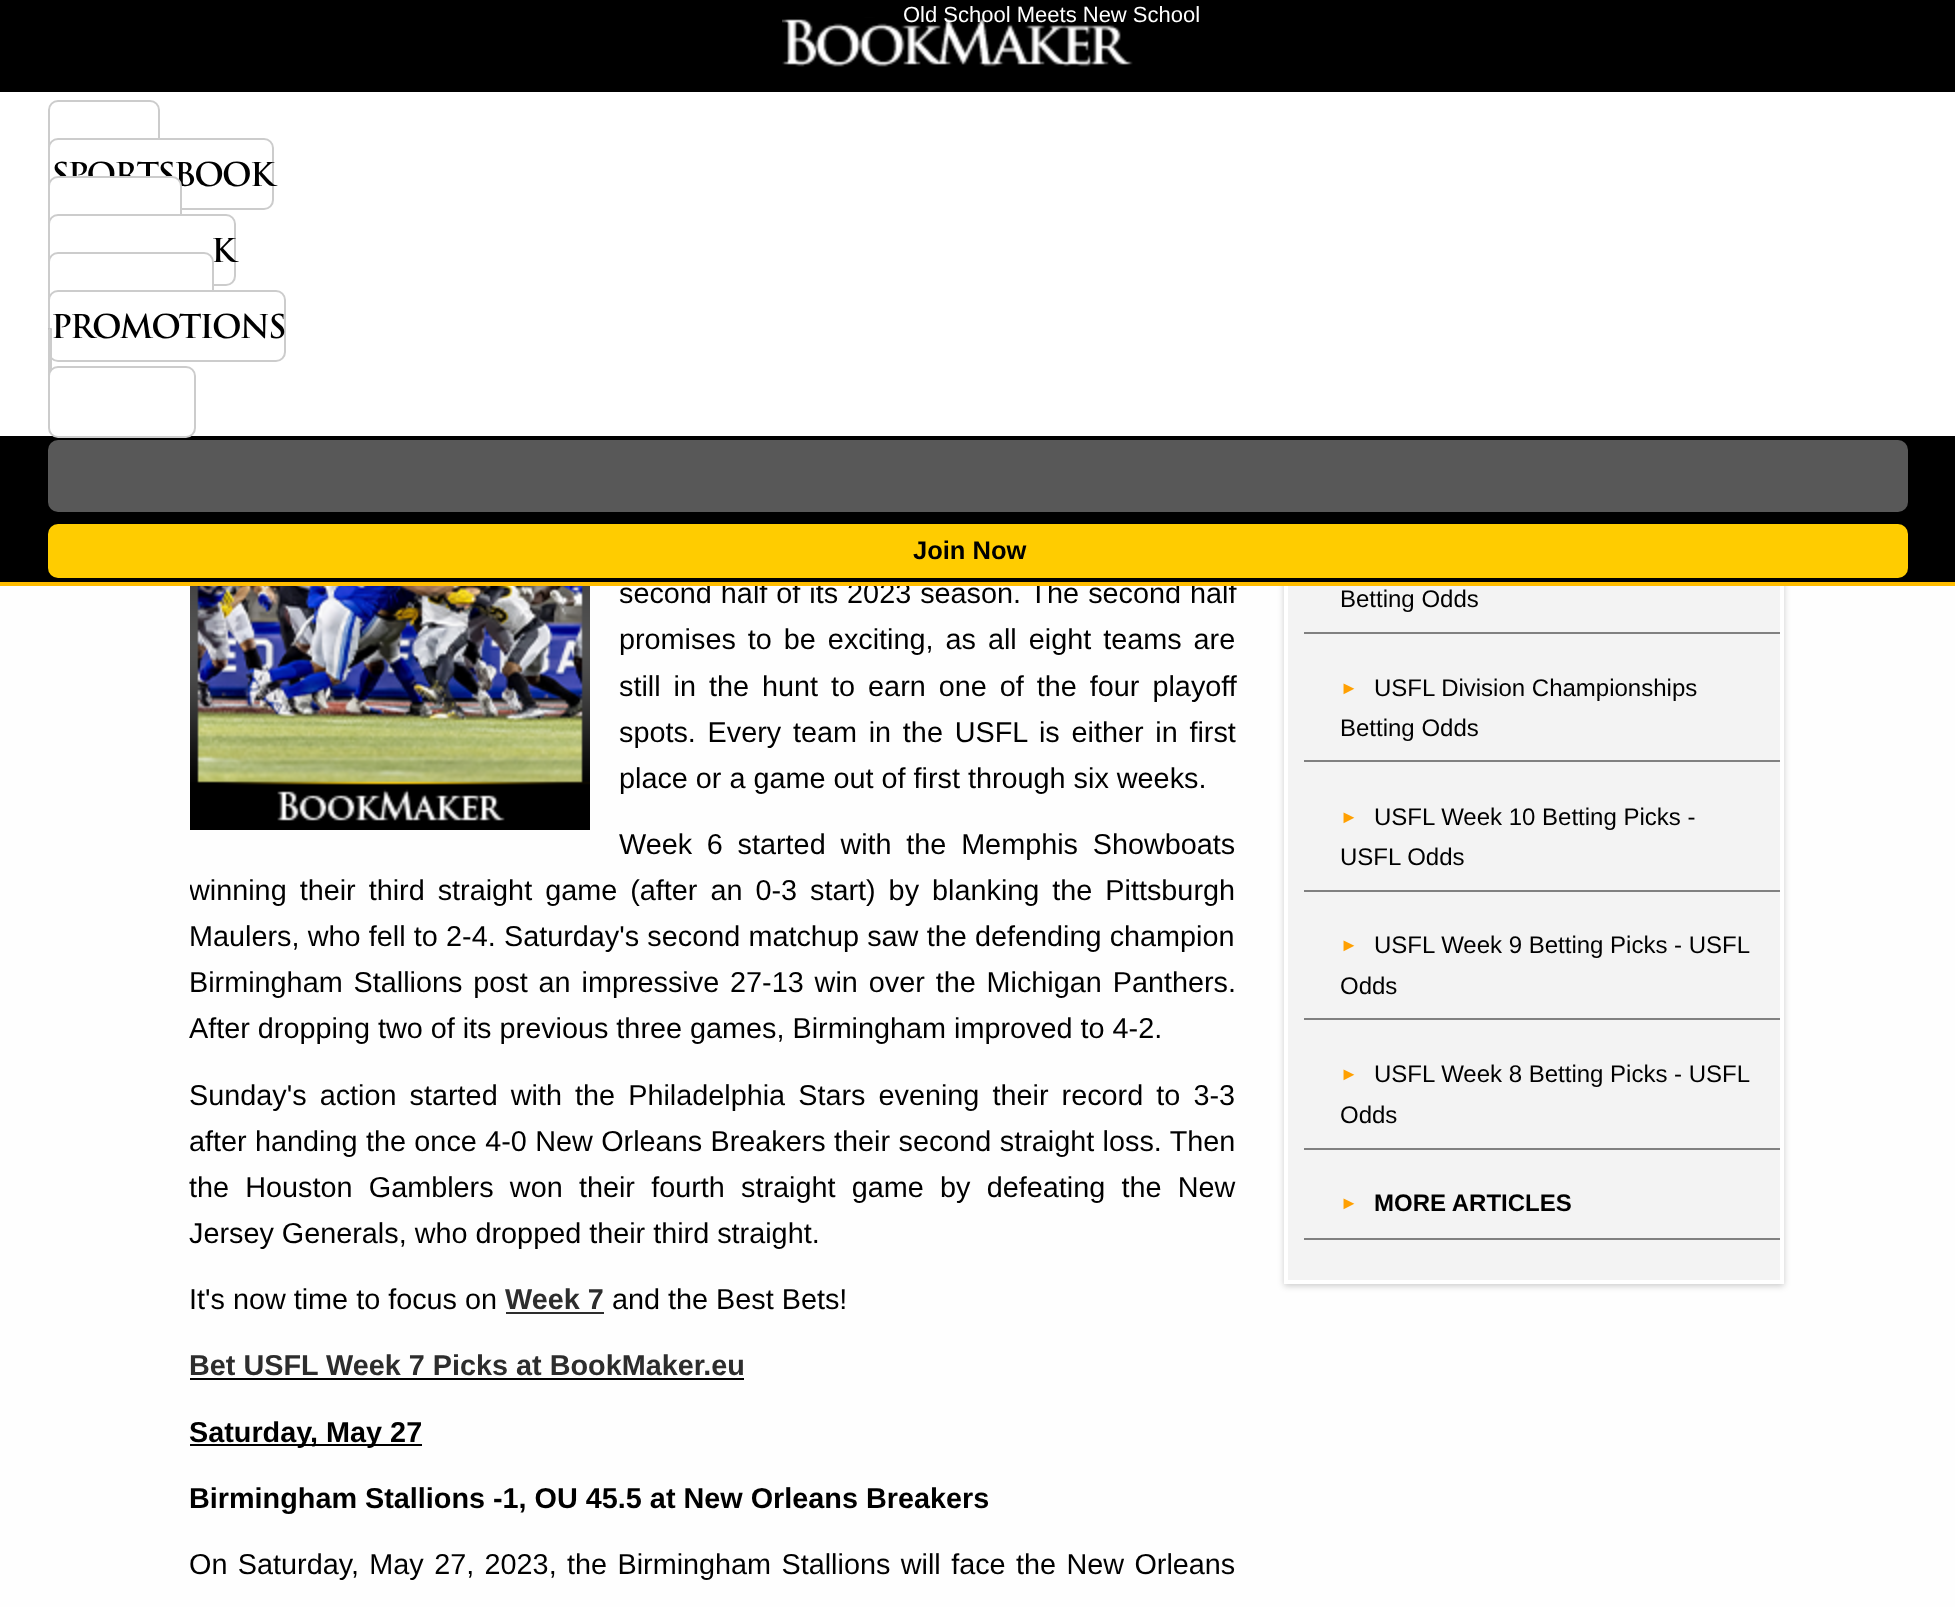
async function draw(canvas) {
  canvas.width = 1955;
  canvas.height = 1607;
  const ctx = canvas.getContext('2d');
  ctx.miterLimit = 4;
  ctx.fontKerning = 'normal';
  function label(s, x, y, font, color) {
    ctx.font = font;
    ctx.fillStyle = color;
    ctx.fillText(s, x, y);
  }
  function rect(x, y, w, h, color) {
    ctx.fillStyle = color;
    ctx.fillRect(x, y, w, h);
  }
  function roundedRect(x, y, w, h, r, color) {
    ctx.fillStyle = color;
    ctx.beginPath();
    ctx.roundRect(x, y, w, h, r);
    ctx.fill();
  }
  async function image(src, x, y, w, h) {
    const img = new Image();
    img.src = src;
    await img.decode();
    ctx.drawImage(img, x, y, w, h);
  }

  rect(0, 0, 1955, 1607, '#fefefe');
  ctx.fillStyle = '#00000033';
  ctx.filter = 'blur(3px)';
  ctx.beginPath();
  ctx.rect(1284, 510, 500, 776);
  ctx.fill();
  ctx.filter = 'none';
  rect(1288, 586, 492, 694, '#f3f3f3');
  ctx.strokeStyle = '#fff';
  ctx.lineWidth = 4;
  ctx.strokeRect(1286, 510, 496, 772);
  rect(0, 0, 1955, 582, '#000');
  ctx.wordSpacing = '1px';
  label('second half of its 2023 season. The second half', 619, 603, '28.8px Liberation Sans', '#000');
  rect(0, 582, 1955, 4, '#ffbc00');
  await image('assets/img1.png', 782, 17, 351, 50);
  ctx.wordSpacing = '0px';
  label('Old School Meets New School', 903, 22, '22px Liberation Sans', '#fff');
  rect(0, 92, 1955, 344, '#fff');
  ctx.beginPath();
  ctx.roundRect(49, 101, 110, 70, 9);
  ctx.strokeStyle = '#ccc';
  ctx.lineWidth = 2;
  ctx.stroke();
  ctx.beginPath();
  ctx.roundRect(49, 139, 224, 70, 9);
  ctx.fill();
  ctx.stroke();
  ctx.letterSpacing = '-2px';
  label('SPORTSBOOK', 51, 186, 'bold 32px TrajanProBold', '#000');
  ctx.fillStyle = '#fff';
  ctx.beginPath();
  ctx.roundRect(49, 177, 132, 70, 9);
  ctx.fill();
  ctx.stroke();
  ctx.beginPath();
  ctx.roundRect(49, 215, 186, 70, 9);
  ctx.fill();
  ctx.stroke();
  label('K', 211, 262, 'bold 32px TrajanProBold', '#000');
  ctx.fillStyle = '#fff';
  ctx.beginPath();
  ctx.roundRect(49, 253, 164, 70, 9);
  ctx.fill();
  ctx.stroke();
  ctx.beginPath();
  ctx.roundRect(49, 291, 236, 70, 9);
  ctx.fill();
  ctx.stroke();
  await image('assets/img2.png', 48, 328, 4, 2);
  roundedRect(48, 328, 4, 72, 2, '#ccc');
  label('PROMOTIONS', 51, 338, 'bold 32px TrajanProBold', '#000');
  ctx.fillStyle = '#fff';
  ctx.beginPath();
  ctx.roundRect(49, 367, 146, 70, 9);
  ctx.fill();
  ctx.stroke();
  roundedRect(48, 440, 1860, 72, 10, '#585858');
  roundedRect(48, 524, 1860, 54, 10, '#fc0');
  ctx.letterSpacing = '0px';
  label('Join Now', 913, 559, 'bold 25.5px Liberation Sans', '#000');
  await image('assets/img3.png', 190, 586, 400, 244);
  ctx.wordSpacing = '4px';
  label('promises to be exciting, as all eight teams are', 619, 649, '28.8px Liberation Sans', '#000');
  ctx.wordSpacing = '5px';
  label('still in the hunt to earn one of the four playoff', 619, 696, '28.8px Liberation Sans', '#000');
  ctx.wordSpacing = '3.75px';
  label('spots. Every team in the USFL is either in first', 619, 742, '28.8px Liberation Sans', '#000');
  ctx.wordSpacing = '0px';
  label('place or a game out of first through six weeks.', 619, 788, '28.8px Liberation Sans', '#000');
  ctx.wordSpacing = '6.75px';
  label('Week 6 started with the Memphis Showboats', 619, 854, '28.8px Liberation Sans', '#000');
  ctx.save();
  ctx.beginPath();
  ctx.rect(190, 430, 1610, 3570);
  ctx.clip();
  ctx.wordSpacing = '5px';
  label('winning their third straight game (after an 0-3 start) by blanking the Pittsburgh', 189, 900, '28.8px Liberation Sans', '#000');
  ctx.restore();
  ctx.wordSpacing = '0.25px';
  label('Maulers, who fell to 2-4. Saturday\'s second matchup saw the defending champion', 189, 946, '28.8px Liberation Sans', '#000');
  ctx.wordSpacing = '2.9px';
  label('Birmingham Stallions post an impressive 27-13 win over the Michigan Panthers.', 189, 992, '28.8px Liberation Sans', '#000');
  ctx.wordSpacing = '0px';
  label('After dropping two of its previous three games, Birmingham improved to 4-2.', 189, 1038, '28.8px Liberation Sans', '#000');
  ctx.wordSpacing = '5.1px';
  label('Sunday\'s action started with the Philadelphia Stars evening their record to 3-3', 189, 1105, '28.8px Liberation Sans', '#000');
  ctx.wordSpacing = '0.4px';
  label('after handing the once 4-0 New Orleans Breakers their second straight loss. Then', 189, 1151, '28.8px Liberation Sans', '#000');
  ctx.wordSpacing = '8.25px';
  label('the Houston Gamblers won their fourth straight game by defeating the New', 189, 1197, '28.8px Liberation Sans', '#000');
  ctx.wordSpacing = '0px';
  label('Jersey Generals, who dropped their third straight.', 189, 1243, '28.8px Liberation Sans', '#000');
  label('It\'s now time to focus on', 189, 1309, '28.8px Liberation Sans', '#000');
  label('Week 7', 505, 1309, 'bold 28.8px Liberation Sans', '#2d2d2d');
  rect(506, 1312, 98, 2, '#2d2d2d');
  label('and the Best Bets!', 612, 1309, '28.8px Liberation Sans', '#000');
  label('Bet USFL Week 7 Picks at BookMaker.eu', 189, 1375, 'bold 28.8px Liberation Sans', '#2d2d2d');
  rect(190, 1378, 554, 2, '#000');
  rect(190, 1444, 232, 2, '#000');
  label('Saturday, May 27', 189, 1442, 'bold 28.8px Liberation Sans', '#000');
  label('Birmingham Stallions -1, OU 45.5 at New Orleans Breakers', 189, 1508, 'bold 28.8px Liberation Sans', '#000');
  ctx.wordSpacing = '2.4px';
  label('On Saturday, May 27, 2023, the Birmingham Stallions will face the New Orleans', 189, 1574, '28.8px Liberation Sans', '#000');
  rect(1304, 632, 476, 2, '#808080');
  ctx.wordSpacing = '0px';
  label('Betting Odds', 1340, 607, '24px Liberation Sans', '#000');
  rect(1304, 760, 476, 2, '#808080');
  label('►', 1340, 694, '18px Liberation Sans', '#ffa001');
  label('USFL Division Championships', 1374, 696, '24px Liberation Sans', '#000');
  label('Betting Odds', 1340, 736, '24px Liberation Sans', '#000');
  rect(1304, 890, 476, 2, '#808080');
  label('►', 1340, 823, '18px Liberation Sans', '#ffa001');
  label('USFL Week 10 Betting Picks -', 1374, 825, '24px Liberation Sans', '#000');
  label('USFL Odds', 1340, 865, '24px Liberation Sans', '#000');
  rect(1304, 1018, 476, 2, '#808080');
  label('►', 1340, 951, '18px Liberation Sans', '#ffa001');
  label('USFL Week 9 Betting Picks - USFL', 1374, 953, '24px Liberation Sans', '#000');
  label('Odds', 1340, 994, '24px Liberation Sans', '#000');
  rect(1304, 1148, 476, 2, '#808080');
  label('►', 1340, 1080, '18px Liberation Sans', '#ffa001');
  label('USFL Week 8 Betting Picks - USFL', 1374, 1082, '24px Liberation Sans', '#000');
  label('Odds', 1340, 1123, '24px Liberation Sans', '#000');
  rect(1304, 1238, 476, 2, '#808080');
  label('►', 1340, 1209, '18px Liberation Sans', '#ffa001');
  label('MORE ARTICLES', 1374, 1211, 'bold 24px Liberation Sans', '#000');
}

draw(document.querySelector('canvas'));
